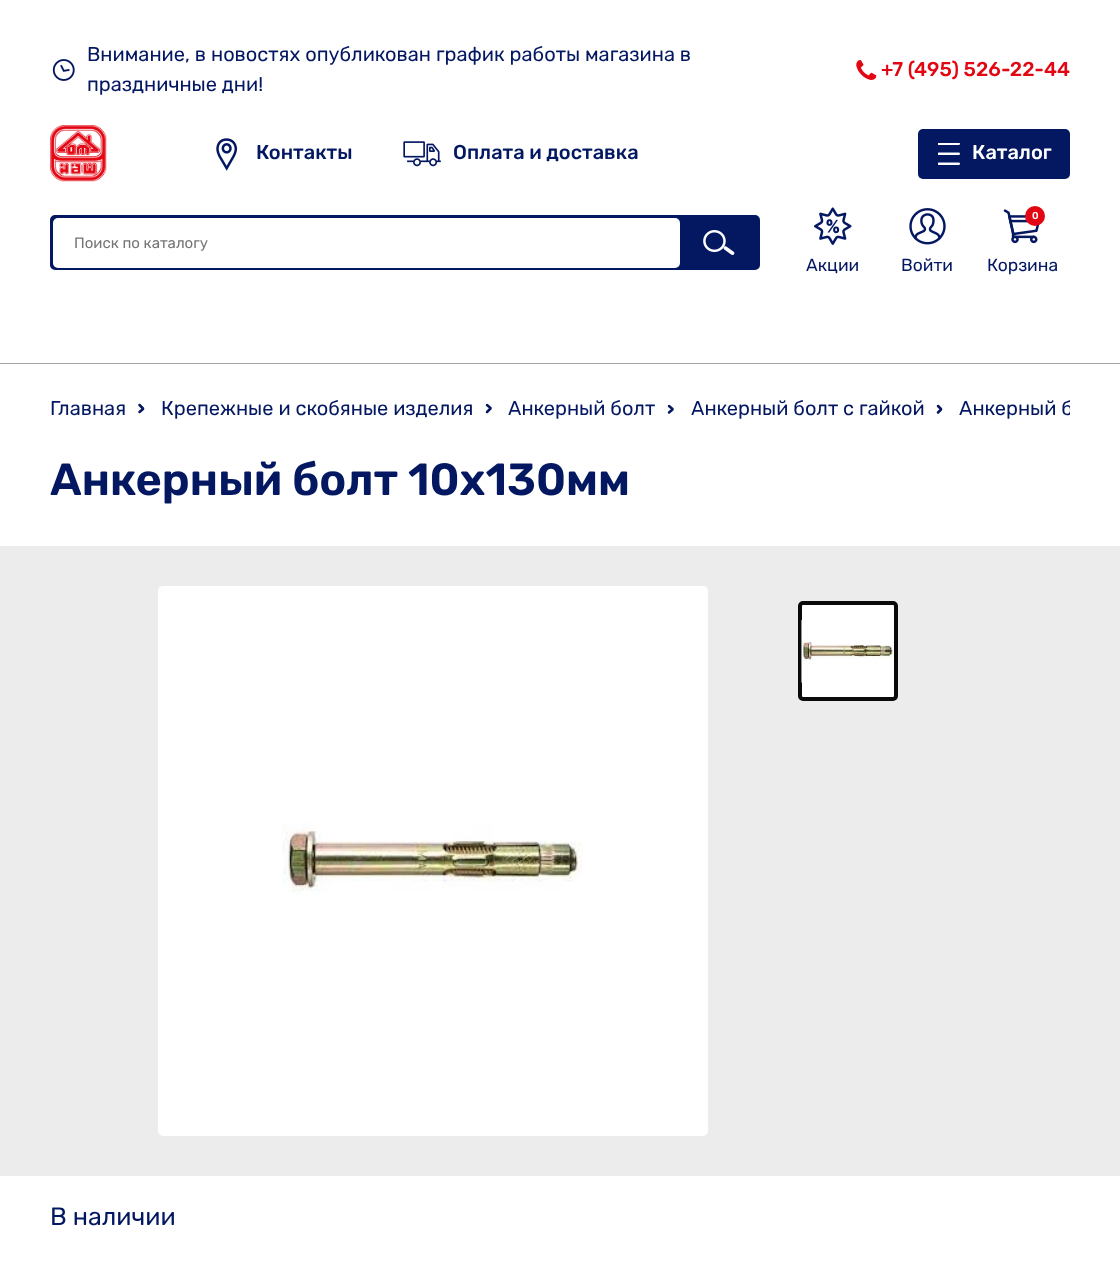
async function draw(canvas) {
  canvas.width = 1120;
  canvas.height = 1265;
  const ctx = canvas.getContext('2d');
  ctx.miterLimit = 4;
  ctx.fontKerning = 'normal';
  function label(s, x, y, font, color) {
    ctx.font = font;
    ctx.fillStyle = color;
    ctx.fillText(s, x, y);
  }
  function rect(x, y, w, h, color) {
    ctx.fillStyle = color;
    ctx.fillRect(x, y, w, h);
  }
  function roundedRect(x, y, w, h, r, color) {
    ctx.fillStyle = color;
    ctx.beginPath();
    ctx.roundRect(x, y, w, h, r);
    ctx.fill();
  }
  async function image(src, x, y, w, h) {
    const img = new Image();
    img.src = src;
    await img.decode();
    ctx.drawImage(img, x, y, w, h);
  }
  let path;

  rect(0, 0, 1120, 1265, '#fff');
  label('Внимание, в новостях опубликован график работы магазина в', 87, 61, '20px Rubik', '#041862');
  await image('assets/img1.png', 52, 59, 23, 22);
  label('праздничные дни!', 87, 91, '20px Rubik', '#041862');
  await image('assets/img2.png', 856, 60, 21, 20);
  label('+7 (495) 526-22-44', 881, 76, '500 20px Rubik', '#e30613');
  await image('assets/img3.png', 50, 125, 57, 57);
  await image('assets/img4.png', 216, 138, 22, 33);
  label('Контакты', 256, 159, '500 20px Rubik', '#041862');
  await image('assets/img5.png', 403, 141, 38, 26);
  label('Оплата и доставка', 453, 159, '500 20px Rubik', '#041862');
  roundedRect(918, 129, 152, 50, 5, '#041862');
  await image('assets/img6.png', 938, 143, 22, 22);
  label('Каталог', 972, 159, '500 20px Rubik', '#fff');
  ctx.fillStyle = '#041862';
  ctx.beginPath();
  ctx.roundRect(51.5, 216.5, 707, 52, 3.5);
  ctx.fill();
  ctx.strokeStyle = '#041862';
  ctx.lineWidth = 3;
  ctx.stroke();
  roundedRect(53, 218, 627, 50, 5, '#fff');
  label('Поиск по каталогу', 74, 248, '15px Rubik', '#757575');
  await image('assets/img7.png', 703, 230, 32, 25);
  await image('assets/img8.png', 814, 207, 38, 38);
  label('Акции', 806, 271, '17.5px Rubik', '#041862');
  await image('assets/img9.png', 909, 208, 37, 37);
  label('Войти', 901, 271, '17.5px Rubik', '#041862');
  await image('assets/img10.png', 1003, 209, 37, 35);
  ctx.fillStyle = '#e30613';
  ctx.beginPath();
  ctx.arc(1035, 216, 10, 0, 2 * Math.PI);
  ctx.fill();
  label('0', 1032, 219, '500 10px Rubik', '#fff');
  label('Корзина', 987, 271, '17.5px Rubik', '#041862');
  rect(0, 363, 1120, 1, '#a0a6aa');
  label('Главная', 50, 415, '20px Rubik', '#041862');
  path = new Path2D('M139.5 412L143 409M139.5 405L143 408.5');
  ctx.lineWidth = 2.5;
  ctx.lineCap = 'round';
  ctx.stroke(path);
  label('Крепежные и скобяные изделия', 161, 415, '20px Rubik', '#041862');
  path = new Path2D('M487 412L490.5 408.5M487 405L490.5 408');
  ctx.stroke(path);
  label('Анкерный болт', 508, 415, '20px Rubik', '#041862');
  path = new Path2D('M669 412.5L672.5 409.5M669 406L672.5 409');
  ctx.stroke(path);
  label('Анкерный болт с гайкой', 691, 415, '20px Rubik', '#041862');
  path = new Path2D('M938 412.5L941 409.5M938 406L941 409');
  ctx.stroke(path);
  ctx.save();
  ctx.beginPath();
  ctx.rect(50, 384, 1020, 50);
  ctx.clip();
  label('Анкерный б', 959, 415, '20px Rubik', '#041862');
  ctx.restore();
  label('Анкерный болт 10х130мм', 50, 495, '600 45px Rubik', '#041862');
  rect(0, 546, 1120, 630, '#ececec');
  roundedRect(158, 586, 550, 550, 5, '#fff');
  await image('assets/img11.png', 282, 822, 301, 73);
  ctx.beginPath();
  ctx.roundRect(800, 603, 96, 96, 3);
  ctx.fill();
  ctx.strokeStyle = '#0a0a0a';
  ctx.lineWidth = 4;
  ctx.stroke();
  await image('assets/img12.png', 801, 619, 93, 64);
  label('В наличии', 50, 1225, '25px Rubik', '#041862');
}

draw(document.querySelector('canvas'));
